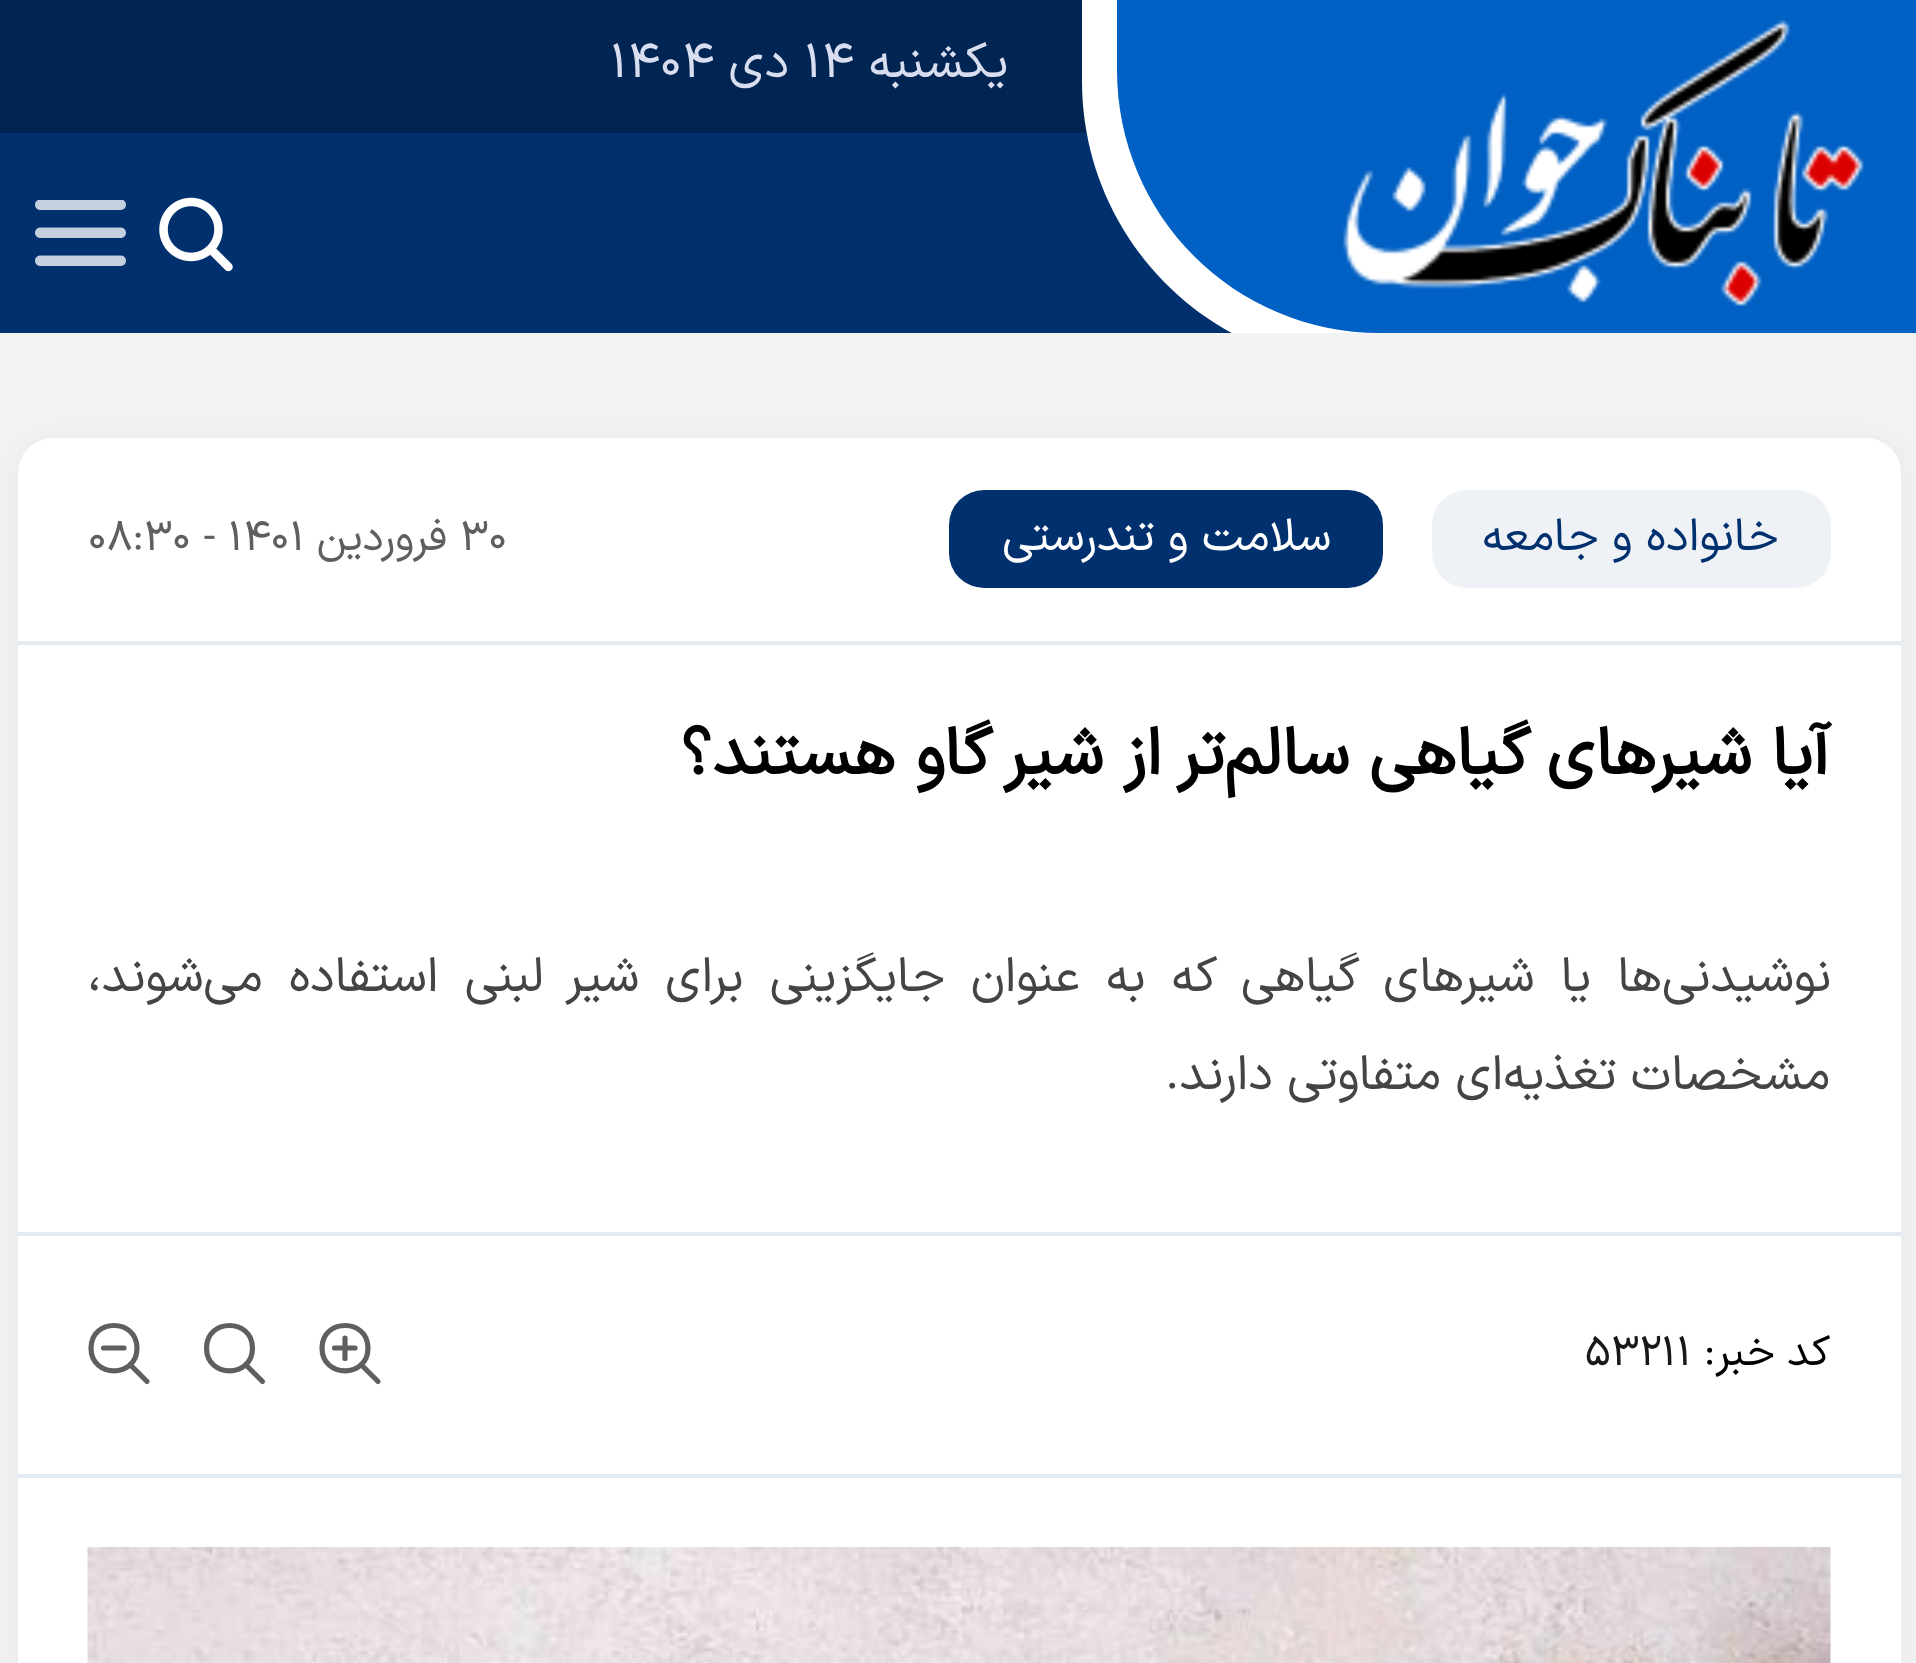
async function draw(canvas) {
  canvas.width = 1916;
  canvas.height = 1663;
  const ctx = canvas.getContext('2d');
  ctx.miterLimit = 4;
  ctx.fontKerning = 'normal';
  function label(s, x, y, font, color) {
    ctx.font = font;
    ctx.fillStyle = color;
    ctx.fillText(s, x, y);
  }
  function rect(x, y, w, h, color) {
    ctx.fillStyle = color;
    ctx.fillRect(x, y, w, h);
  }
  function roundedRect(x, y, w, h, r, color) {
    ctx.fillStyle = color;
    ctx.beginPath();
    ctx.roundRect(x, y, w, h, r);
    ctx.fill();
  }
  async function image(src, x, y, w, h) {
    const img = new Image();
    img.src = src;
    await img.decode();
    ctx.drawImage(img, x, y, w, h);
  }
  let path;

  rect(0, 0, 1916, 1663, '#f3f3f3');
  rect(0, 133, 1232, 200, '#00316e');
  rect(0, 0, 1087, 133, '#002553');
  ctx.save();
  ctx.beginPath();
  ctx.rect(1078, 0, 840, 333);
  ctx.clip();
  ctx.fillStyle = '#fff';
  path = new Path2D('M1082 0H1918V368H1369C1210.5 368 1082 239.5 1082 81Z');
  ctx.fill(path);
  ctx.restore();
  ctx.fillStyle = '#0060c4';
  path = new Path2D('M1117 0H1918V333H1380C1234.5 333 1117 215.5 1117 70Z');
  ctx.fill(path);
  await image('assets/img1.png', 1342, 19, 522, 287);
  ctx.direction = 'rtl';
  label('يکشنبه', 1008, 77, '49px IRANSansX', '#d8deef');
  ctx.direction = 'ltr';
  label('۱۴', 804, 77, '49px IRANSansX', '#d8deef');
  ctx.direction = 'rtl';
  label('دی', 789, 77, '49px IRANSansX', '#d8deef');
  ctx.direction = 'ltr';
  label('۱۴۰۴', 610, 77, '49px IRANSansX', '#d8deef');
  await image('assets/img2.png', 159, 197, 74, 75);
  await image('assets/img3.png', 35, 200, 91, 66);
  ctx.fillStyle = '#0000000d';
  ctx.filter = 'blur(17.5px)';
  ctx.beginPath();
  ctx.roundRect(18, 438, 1883, 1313, 35);
  ctx.fill();
  ctx.filter = 'none';
  roundedRect(18, 438, 1883, 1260, 35, '#fff');
  rect(18, 641, 1883, 4, '#e3eaf2');
  roundedRect(1432, 490, 399, 98, 35, '#eef2f7');
  ctx.direction = 'rtl';
  label('خانواده و جامعه', 1778, 550, '45.5px IRANSansX', '#00316e');
  roundedRect(949, 490, 434, 98, 35, '#00316e');
  label('سلامت و تندرستی', 1331, 550, '45.5px IRANSansX', '#fff');
  ctx.direction = 'ltr';
  label('۳۰', 460, 550, '42px IRANSansX', '#5f5f5f');
  ctx.direction = 'rtl';
  label('فروردين', 447, 550, '42px IRANSansX', '#5f5f5f');
  ctx.direction = 'ltr';
  label('۰۸:۳۰ - ۱۴۰۱', 88, 550, '42px IRANSansX', '#5f5f5f');
  ctx.direction = 'rtl';
  label('آیا شیرهای گیاهی سالم‌تر از شیر گاو هستند؟', 1830, 774, 'bold 66.5px IRANSansX', '#000');
  ctx.wordSpacing = '11.6px';
  label('نوشیدنی‌ها یا شیر‌های گیاهی که به عنوان جایگزینی برای شیر لبنی استفاده می‌شوند،', 1831, 991, '49px IRANSansX', '#444');
  ctx.wordSpacing = '0px';
  label('مشخصات تغذیه‌ای متفاوتی دارند.', 1830, 1089, '49px IRANSansX', '#444');
  rect(18, 1232, 1883, 4, '#e3eaf2');
  rect(18, 1474, 1883, 4, '#e3eaf2');
  label('کد خبر:', 1830, 1365, '42px IRANSansX', '#000');
  ctx.direction = 'ltr';
  label('۵۳۲۱۱', 1585, 1365, '42px IRANSansX', '#181818');
  path = new Path2D('M378 1381.5L361 1364.5M345 1338V1358.5M334.5 1348H355M368 1348C368 1378.5 322 1378.5 322 1348C322 1318 368 1318 368 1348Z');
  ctx.strokeStyle = '#5f5f5f';
  ctx.lineWidth = 5.2;
  ctx.lineCap = 'round';
  ctx.lineJoin = 'round';
  ctx.stroke(path);
  path = new Path2D('M262.5 1381.5L245.5 1364.5M252.5 1348C252.5 1378.5 206.5 1378.5 206.5 1348C206.5 1318 252.5 1318 252.5 1348Z');
  ctx.stroke(path);
  path = new Path2D('M147 1381.5L130 1364.5M103.5 1348H124M137 1348C137 1378.5 91 1378.5 91 1348C91 1318 137 1318 137 1348Z');
  ctx.stroke(path);
  await image('assets/img4.png', 87, 1547, 1744, 116);
}

draw(document.querySelector('canvas'));
